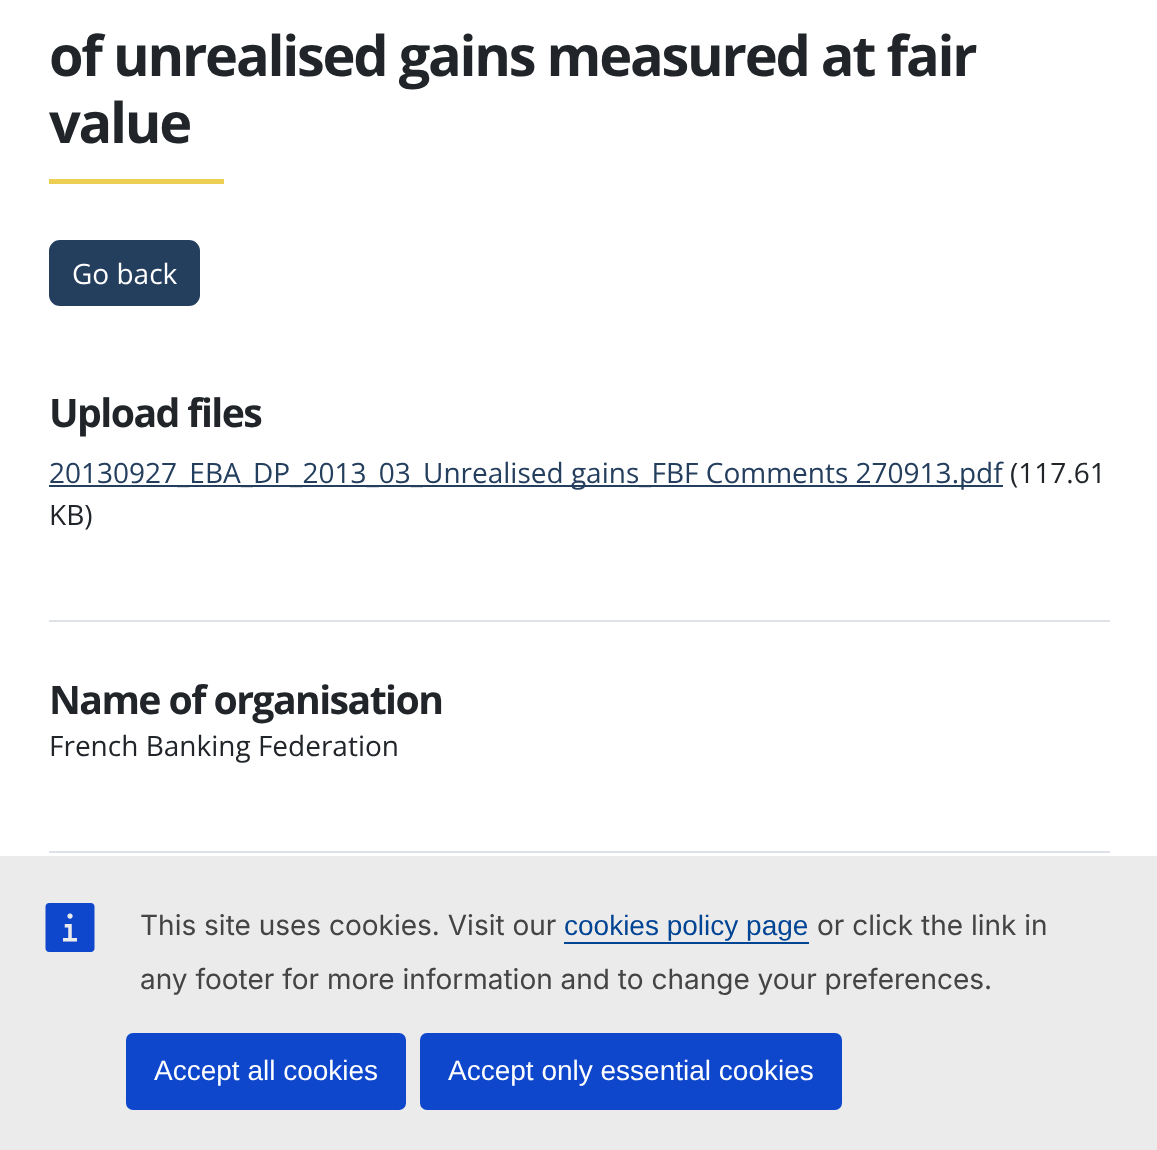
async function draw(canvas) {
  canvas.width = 1157;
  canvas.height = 1150;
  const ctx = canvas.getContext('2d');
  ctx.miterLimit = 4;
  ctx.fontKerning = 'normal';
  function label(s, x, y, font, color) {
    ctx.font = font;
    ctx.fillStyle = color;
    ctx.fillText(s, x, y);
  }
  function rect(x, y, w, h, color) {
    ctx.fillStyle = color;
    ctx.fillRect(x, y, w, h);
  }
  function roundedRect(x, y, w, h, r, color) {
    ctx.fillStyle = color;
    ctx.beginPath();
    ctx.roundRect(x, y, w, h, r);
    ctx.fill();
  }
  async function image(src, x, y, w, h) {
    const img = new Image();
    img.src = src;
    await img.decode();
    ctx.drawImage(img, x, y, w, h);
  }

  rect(0, 0, 1157, 1150, '#fff');
  ctx.letterSpacing = '-2.25px';
  label('of unrealised gains measured at fair', 49, 76, 'bold 55.9px Open Sans', '#212529');
  label('value', 49, 143, 'bold 55.9px Open Sans', '#212529');
  rect(49, 179, 175, 5, '#eccf52');
  ctx.fillStyle = '#243e5e';
  ctx.beginPath();
  ctx.roundRect(50, 241, 149, 64, 10);
  ctx.fill();
  ctx.strokeStyle = '#243e5e';
  ctx.lineWidth = 2;
  ctx.stroke();
  ctx.letterSpacing = '0px';
  label('Go back', 72, 284, '28px Open Sans', '#fff');
  rect(49, 620, 1061, 2, '#dee2e6');
  ctx.letterSpacing = '-1.6px';
  label('Upload files', 49, 427, 'bold 39.25px Open Sans', '#212529');
  rect(49, 485, 954, 2, '#243e5e');
  ctx.letterSpacing = '0px';
  label('20130927_EBA_DP_2013_03_Unrealised gains_FBF Comments 270913.pdf', 49, 483, '28px Open Sans', '#243e5e');
  label('(117.61', 1010, 483, '28px Open Sans', '#212529');
  label('KB)', 49, 525, '28px Open Sans', '#212529');
  rect(49, 851, 1061, 2, '#dee2e6');
  ctx.letterSpacing = '-1.6px';
  label('Name of organisation', 49, 714, 'bold 39.25px Open Sans', '#212529');
  ctx.letterSpacing = '0px';
  label('French Banking Federation', 49, 756, '28px Open Sans', '#212529');
  rect(0, 856, 1157, 294, '#ebebeb');
  await image('assets/img1.png', 45, 903, 50, 49);
  label('This site uses cookies. Visit our', 140, 935, '28px Inter', '#444');
  label('cookies policy page', 564, 935, '28px Liberation Sans', '#004494');
  rect(564, 942, 245, 2, '#004494');
  label('or click the link in', 817, 935, '28px Inter', '#444');
  label('any footer for more information and to change your preferences.', 140, 989, '28px Inter', '#444');
  roundedRect(126, 1033, 280, 77, 7, '#0e47cb');
  label('Accept all cookies', 154, 1080, '28px Liberation Sans', '#fff');
  roundedRect(420, 1033, 422, 77, 7, '#0e47cb');
  label('Accept only essential cookies', 448, 1080, '28px Liberation Sans', '#fff');
}

draw(document.querySelector('canvas'));
